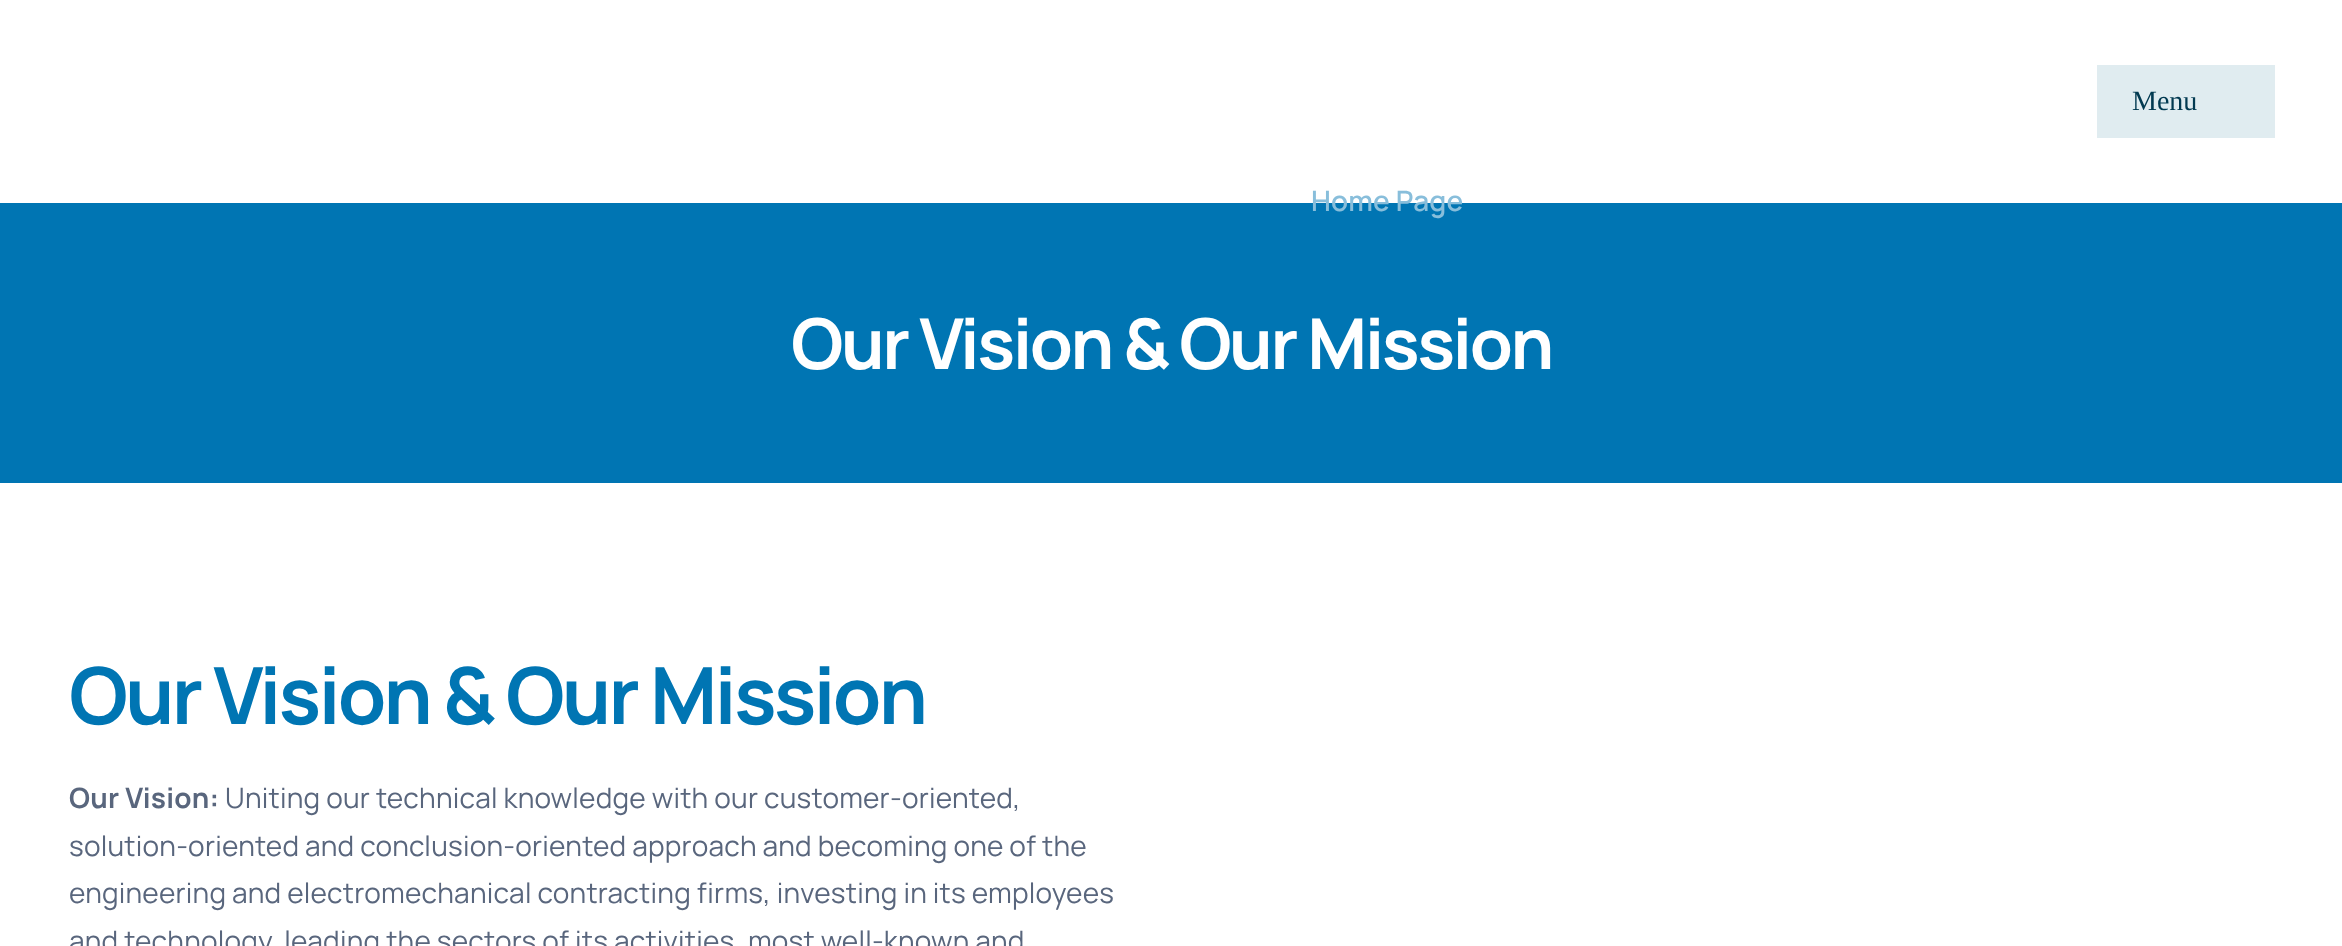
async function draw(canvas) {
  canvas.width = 2342;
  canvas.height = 946;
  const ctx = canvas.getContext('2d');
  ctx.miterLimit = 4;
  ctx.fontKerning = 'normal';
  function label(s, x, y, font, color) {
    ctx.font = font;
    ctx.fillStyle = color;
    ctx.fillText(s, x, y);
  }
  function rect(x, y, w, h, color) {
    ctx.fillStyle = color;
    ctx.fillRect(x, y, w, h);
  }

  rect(0, 0, 2342, 946, '#fff');
  rect(2097, 65, 178, 73, '#e0ecf0');
  label('Menu', 2132, 110, '28px Liberation Serif', '#023a51');
  rect(0, 203, 2342, 280, '#0075b3');
  ctx.letterSpacing = '0.22px';
  label('Home Page', 1311, 211, '600 28px Manrope', '#88bedb');
  ctx.letterSpacing = '-2.5px';
  label('Our Vision & Our Mission', 791, 369, 'bold 70px Manrope', '#fff');
  ctx.letterSpacing = '-2.8px';
  label('Our Vision & Our Mission', 69, 724, 'bold 78.75px Manrope', '#0075b3');
  ctx.letterSpacing = '0.22px';
  label('Our Vision:', 69, 808, 'bold 28px Manrope', '#59667d');
  label('Uniting our technical knowledge with our customer-oriented,', 225, 808, '28px Manrope', '#59667d');
  label('solution-oriented and conclusion-oriented approach and becoming one of the', 69, 856, '28px Manrope', '#59667d');
  label('engineering and electromechanical contracting firms, investing in its employees', 69, 903, '28px Manrope', '#59667d');
  label('and technology, leading the sectors of its activities, most well-known and', 69, 951, '28px Manrope', '#59667d');
}

draw(document.querySelector('canvas'));
